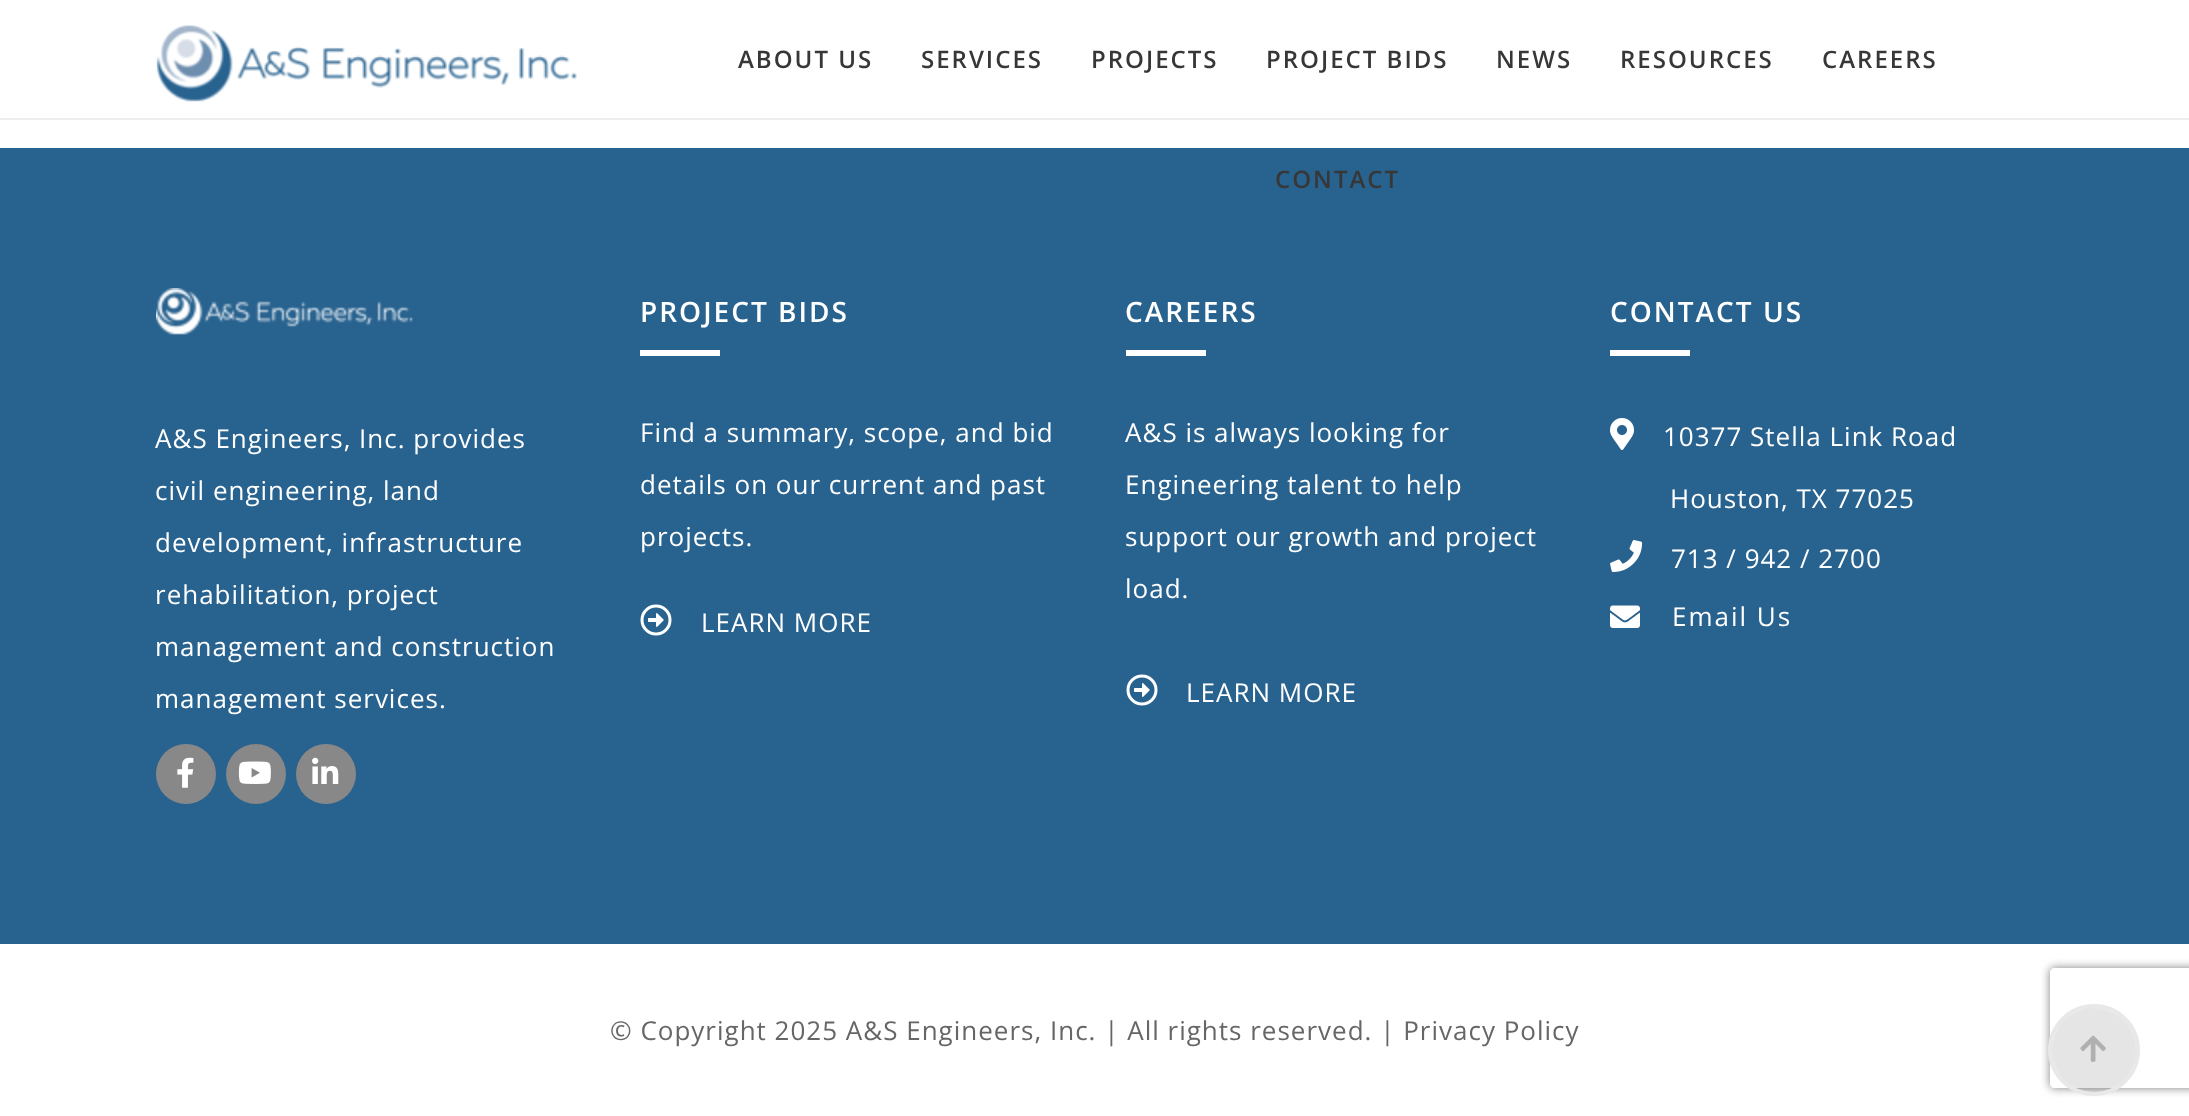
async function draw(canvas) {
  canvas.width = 2189;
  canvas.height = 1116;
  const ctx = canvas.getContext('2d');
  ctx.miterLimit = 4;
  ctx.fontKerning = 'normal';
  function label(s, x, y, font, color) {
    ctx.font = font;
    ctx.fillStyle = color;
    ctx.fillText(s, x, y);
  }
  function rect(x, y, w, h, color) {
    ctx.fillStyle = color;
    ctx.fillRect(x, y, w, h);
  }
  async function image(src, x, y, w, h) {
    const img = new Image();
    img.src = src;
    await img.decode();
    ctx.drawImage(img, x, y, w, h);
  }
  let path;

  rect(0, 0, 2189, 1116, '#fff');
  rect(0, 118, 2189, 2, '#eee');
  await image('assets/img1.png', 156, 25, 421, 77);
  ctx.letterSpacing = '2px';
  label('ABOUT US', 738, 68, '600 24px Open Sans', '#373737');
  label('SERVICES', 921, 68, '600 24px Open Sans', '#373737');
  label('PROJECTS', 1091, 68, '600 24px Open Sans', '#373737');
  label('PROJECT BIDS', 1266, 68, '600 24px Open Sans', '#373737');
  label('NEWS', 1496, 68, '600 24px Open Sans', '#373737');
  label('RESOURCES', 1620, 68, '600 24px Open Sans', '#373737');
  label('CAREERS', 1822, 68, '600 24px Open Sans', '#373737');
  rect(0, 148, 2189, 796, '#28628f');
  label('CONTACT', 1275, 188, '600 24px Open Sans', '#373737');
  await image('assets/img2.png', 156, 288, 257, 47);
  ctx.letterSpacing = '1px';
  label('A&S Engineers, Inc. provides', 155, 448, '26px Open Sans', '#fff');
  label('civil engineering, land', 155, 500, '26px Open Sans', '#fff');
  label('development, infrastructure', 155, 552, '26px Open Sans', '#fff');
  label('rehabilitation, project', 155, 604, '26px Open Sans', '#fff');
  label('management and construction', 155, 656, '26px Open Sans', '#fff');
  label('management services.', 155, 708, '26px Open Sans', '#fff');
  ctx.fillStyle = '#888';
  ctx.beginPath();
  ctx.arc(186, 774, 30, 0, 2 * Math.PI);
  ctx.fill();
  await image('assets/img3.png', 177, 757, 17, 31);
  ctx.beginPath();
  ctx.arc(256, 774, 30, 0, 2 * Math.PI);
  ctx.fill();
  await image('assets/img4.png', 238, 761, 33, 23);
  ctx.beginPath();
  ctx.arc(326, 774, 30, 0, 2 * Math.PI);
  ctx.fill();
  await image('assets/img5.png', 312, 757, 27, 27);
  ctx.letterSpacing = '2px';
  label('PROJECT BIDS', 640, 322, '600 28px Open Sans', '#fff');
  rect(640, 350, 80, 6, '#fff');
  ctx.letterSpacing = '1px';
  label('Find a summary, scope, and bid', 640, 442, '26px Open Sans', '#fff');
  label('details on our current and past', 640, 494, '26px Open Sans', '#fff');
  label('projects.', 640, 546, '26px Open Sans', '#fff');
  await image('assets/img6.png', 640, 604, 32, 32);
  label('LEARN MORE', 701, 632, '26px Open Sans', '#fff');
  ctx.letterSpacing = '2px';
  label('CAREERS', 1125, 322, '600 28px Open Sans', '#fff');
  rect(1126, 350, 80, 6, '#fff');
  ctx.letterSpacing = '1px';
  label('A&S is always looking for', 1125, 442, '26px Open Sans', '#fff');
  label('Engineering talent to help', 1125, 494, '26px Open Sans', '#fff');
  label('support our growth and project', 1125, 546, '26px Open Sans', '#fff');
  label('load.', 1125, 598, '26px Open Sans', '#fff');
  await image('assets/img6.png', 1126, 674, 32, 32);
  label('LEARN MORE', 1186, 702, '26px Open Sans', '#fff');
  ctx.letterSpacing = '2px';
  label('CONTACT US', 1610, 322, '600 28px Open Sans', '#fff');
  rect(1610, 350, 80, 6, '#fff');
  await image('assets/img7.png', 1610, 418, 24, 32);
  ctx.letterSpacing = '1px';
  label('10377 Stella Link Road', 1663, 446, '26px Open Sans', '#fff');
  label('Houston, TX 77025', 1670, 508, '26px Open Sans', '#fff');
  await image('assets/img8.png', 1610, 540, 33, 32);
  label('713 / 942 / 2700', 1671, 568, '26px Open Sans', '#fff');
  await image('assets/img9.png', 1610, 605, 30, 23);
  ctx.letterSpacing = '2px';
  label('Email Us', 1672, 626, '26px Open Sans', '#fff');
  ctx.letterSpacing = '1px';
  label('© Copyright 2025 A&S Engineers, Inc. | All rights reserved. | Privacy Policy', 610, 1040, '26px Open Sans', '#666');
  ctx.save();
  path = new Path2D('M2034 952H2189V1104H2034ZM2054 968H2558C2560 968 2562 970 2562 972V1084C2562 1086 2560 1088 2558 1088H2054C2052 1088 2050 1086 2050 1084V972C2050 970 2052 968 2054 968Z');
  ctx.clip(path, 'evenodd');
  ctx.fillStyle = '#808080';
  ctx.filter = 'blur(5px)';
  ctx.beginPath();
  ctx.roundRect(2050, 968, 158, 120, 4);
  ctx.fill();
  ctx.filter = 'none';
  ctx.restore();
  ctx.beginPath();
  ctx.arc(2094, 1050, 44, 0, 2 * Math.PI);
  ctx.strokeStyle = '#e8e8e8';
  ctx.lineWidth = 4;
  ctx.stroke();
  ctx.fillStyle = '#0000001a';
  ctx.beginPath();
  ctx.arc(2094, 1050, 42, 0, 2 * Math.PI);
  ctx.fill();
  await image('assets/img10.png', 2080, 1035, 26, 27);
}

draw(document.querySelector('canvas'));
